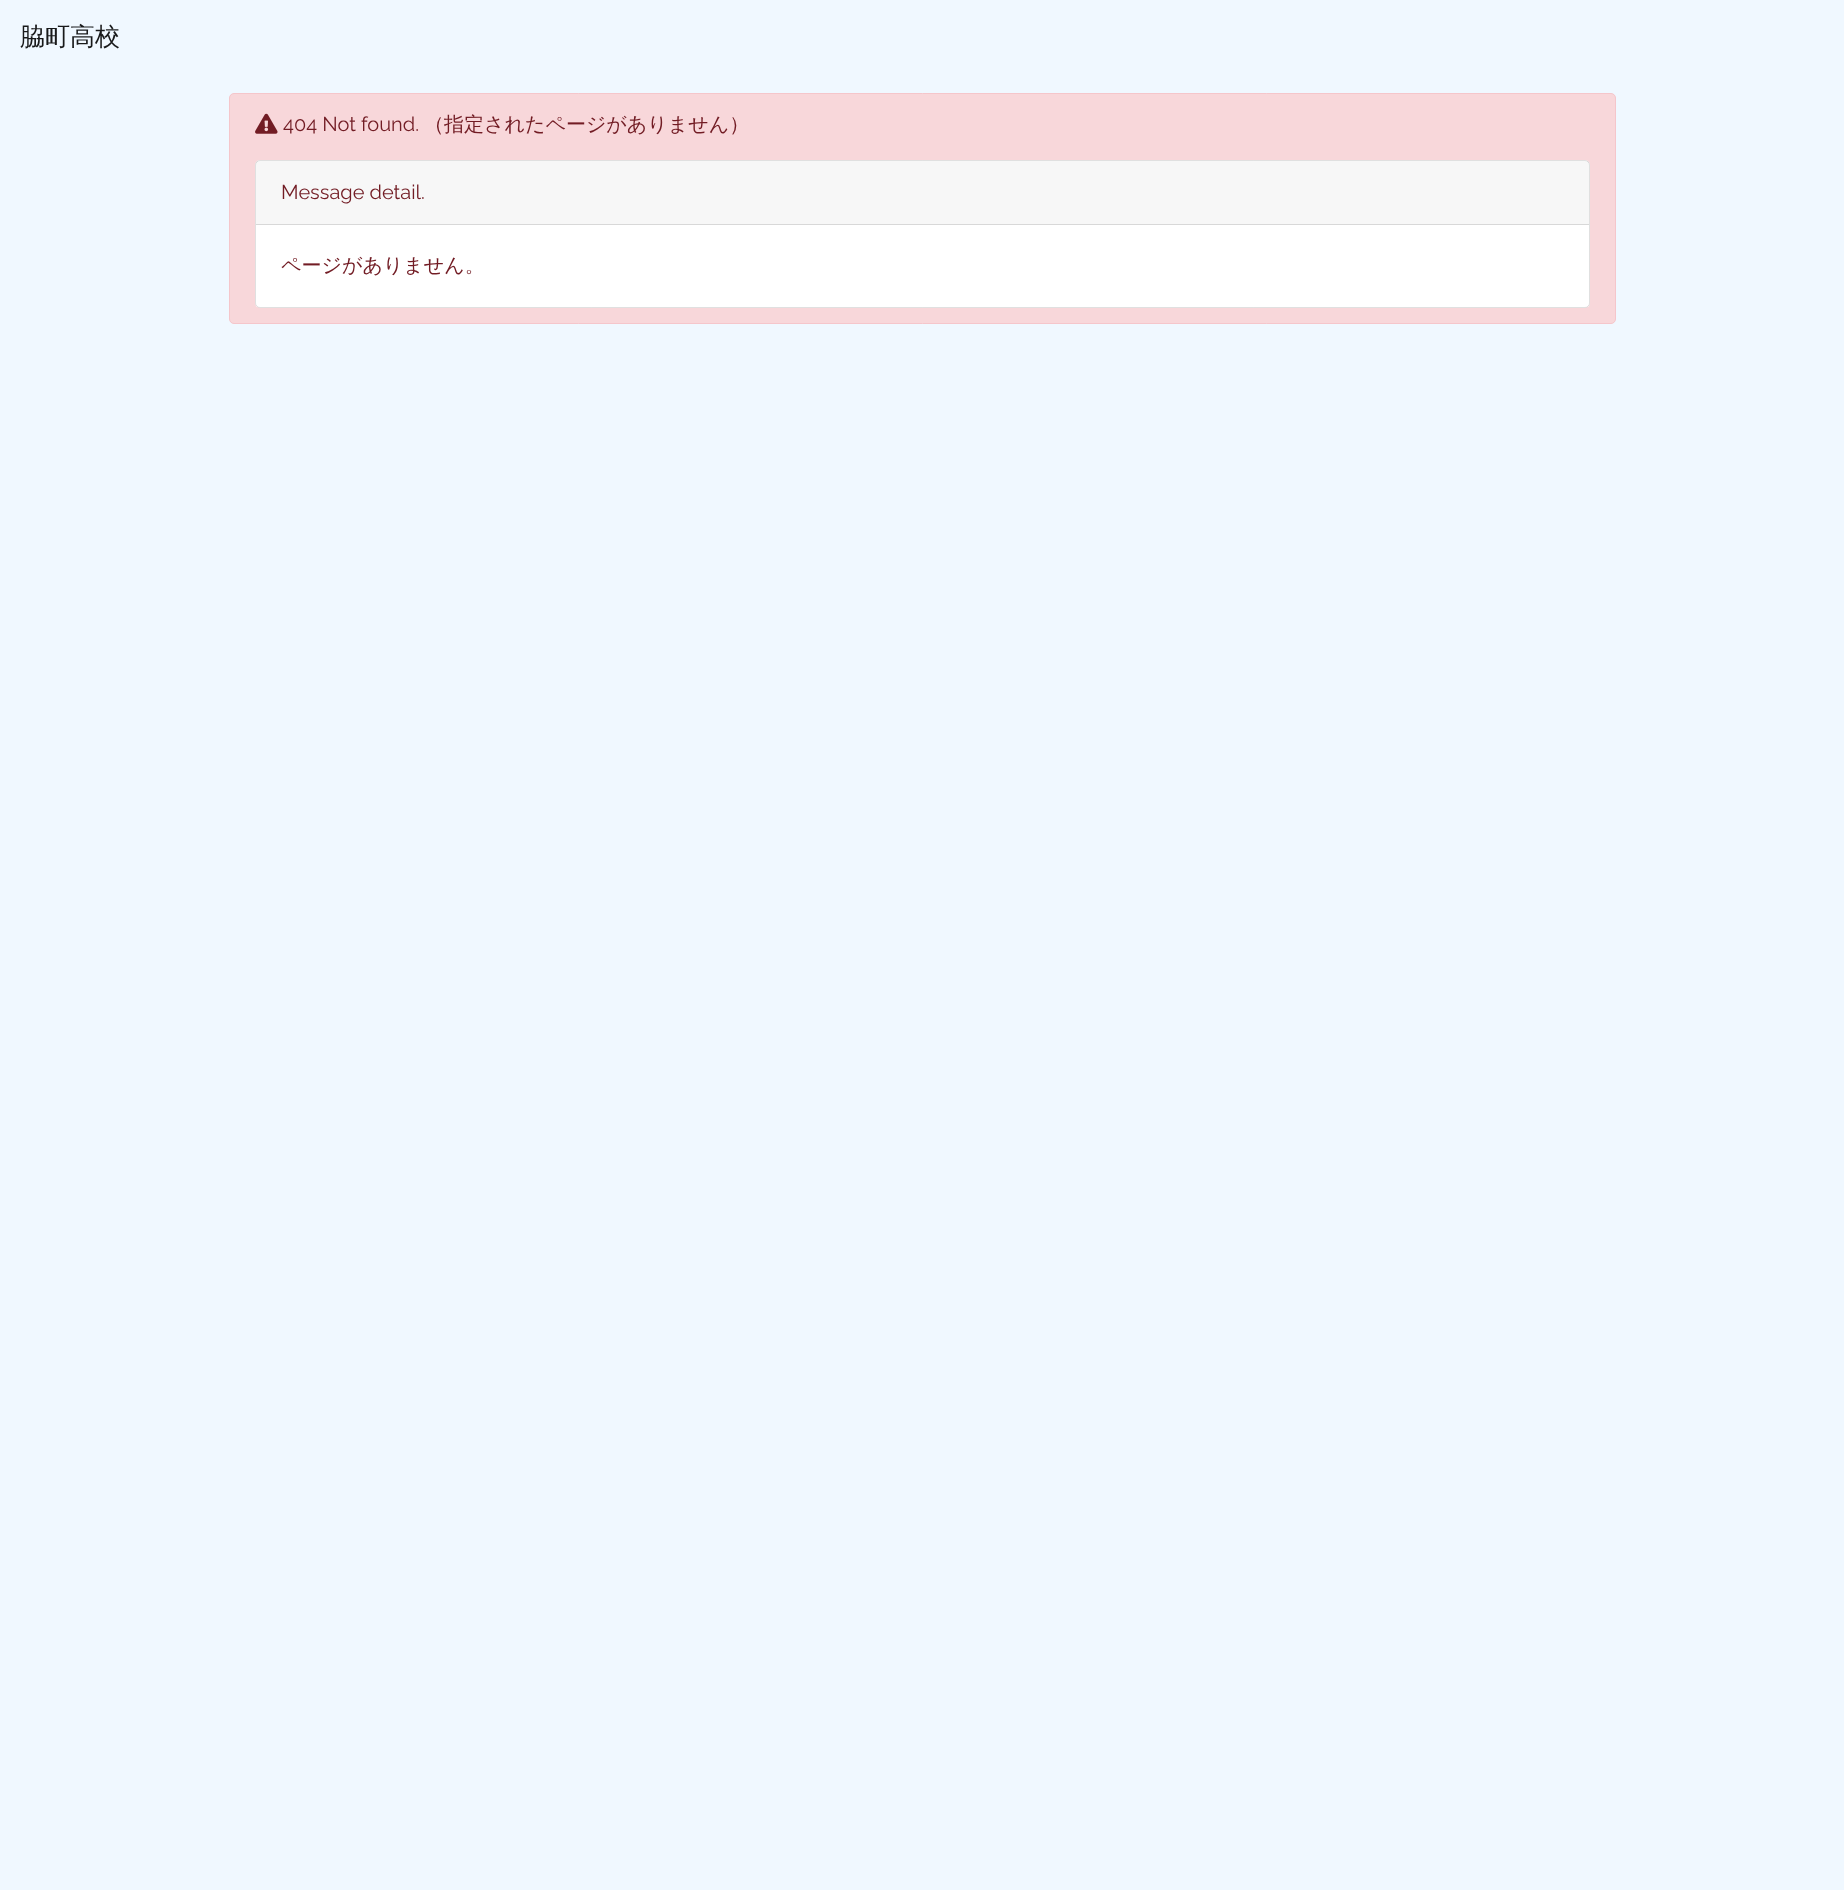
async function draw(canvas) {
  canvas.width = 1844;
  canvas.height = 1890;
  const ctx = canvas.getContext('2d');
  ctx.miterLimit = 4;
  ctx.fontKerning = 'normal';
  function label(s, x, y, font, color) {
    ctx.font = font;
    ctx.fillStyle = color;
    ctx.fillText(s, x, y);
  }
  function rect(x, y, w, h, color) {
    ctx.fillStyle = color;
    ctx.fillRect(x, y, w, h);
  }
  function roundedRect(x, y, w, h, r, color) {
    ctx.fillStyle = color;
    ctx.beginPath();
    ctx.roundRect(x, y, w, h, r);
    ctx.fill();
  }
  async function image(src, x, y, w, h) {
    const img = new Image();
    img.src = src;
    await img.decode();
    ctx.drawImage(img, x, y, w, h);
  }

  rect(0, 0, 1844, 1890, '#f0f8ff');
  label('脇町高校', 20, 45, '500 25px WenQuanYi Zen Hei', '#18191a');
  ctx.fillStyle = '#f8d7da';
  ctx.beginPath();
  ctx.roundRect(229.5, 93.5, 1386, 230, 4.5);
  ctx.fill();
  ctx.strokeStyle = '#f5c6cb';
  ctx.stroke();
  await image('assets/img1.png', 255, 113, 23, 21);
  label('404 Not found.', 283, 131, '20px Raleway', '#721c24');
  label('（指定されたページがありません）', 424, 131, '500 20px WenQuanYi Zen Hei', '#721c24');
  roundedRect(255, 160, 1335, 148, 5, '#fff');
  ctx.beginPath();
  ctx.roundRect(255.5, 160.5, 1334, 147, 4.5);
  ctx.strokeStyle = '#0000001f';
  ctx.stroke();
  rect(256, 161, 1333, 63, '#00000008');
  rect(256, 224, 1333, 1, '#d8d8d8');
  label('Message detail.', 281, 199, '20px Raleway', '#721c24');
  label('ページがありません。', 281, 272, '500 20px WenQuanYi Zen Hei', '#721c24');
}

draw(document.querySelector('canvas'));
